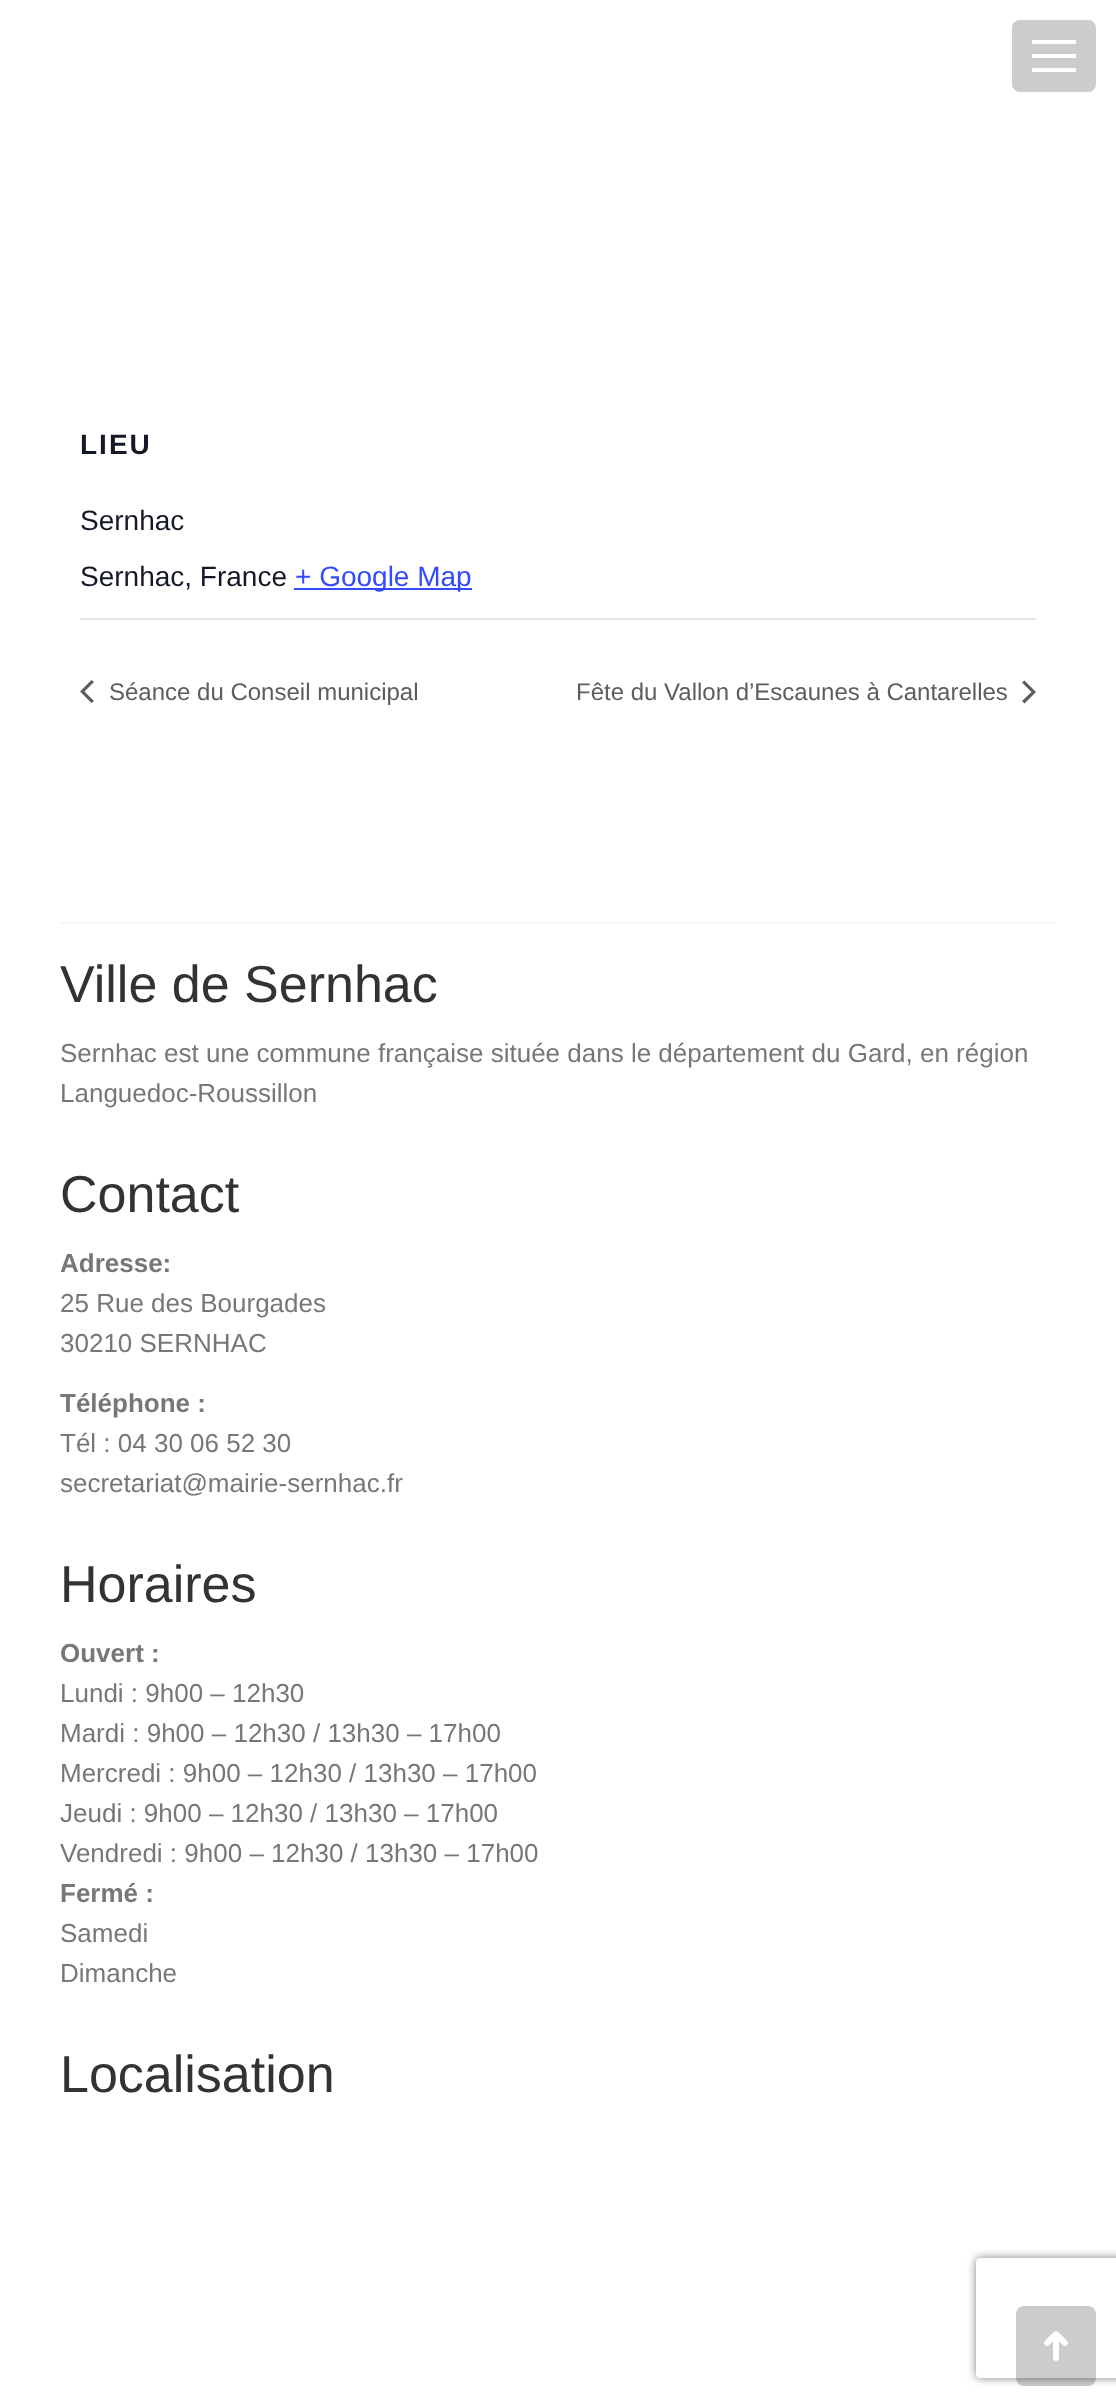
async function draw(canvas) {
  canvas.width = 1116;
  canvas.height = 2406;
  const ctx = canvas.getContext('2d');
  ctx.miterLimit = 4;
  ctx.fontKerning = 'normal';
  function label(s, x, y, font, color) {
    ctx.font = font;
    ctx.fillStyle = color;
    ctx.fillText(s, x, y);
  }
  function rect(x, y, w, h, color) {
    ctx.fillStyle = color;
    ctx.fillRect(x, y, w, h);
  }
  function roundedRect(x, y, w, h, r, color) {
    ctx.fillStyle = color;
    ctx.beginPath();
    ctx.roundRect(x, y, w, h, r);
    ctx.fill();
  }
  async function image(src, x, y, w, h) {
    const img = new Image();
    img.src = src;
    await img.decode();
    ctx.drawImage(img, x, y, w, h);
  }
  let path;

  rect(0, 0, 1116, 2406, '#fff');
  roundedRect(1012, 20, 84, 72, 8, '#ccc');
  rect(1032, 40, 44, 4, '#fff');
  rect(1032, 54, 44, 4, '#fff');
  rect(1032, 68, 44, 4, '#fff');
  ctx.letterSpacing = '2px';
  label('LIEU', 80, 454, 'bold 28px Liberation Sans', '#141827');
  ctx.letterSpacing = '0px';
  label('Sernhac', 80, 530, '28px Liberation Sans', '#141827');
  label('Sernhac, France', 80, 586, '28px Liberation Sans', '#141827');
  rect(294, 588, 178, 2, '#334aff');
  label('+ Google Map', 295, 586, '28px Liberation Sans', '#334aff');
  rect(80, 618, 956, 2, '#e4e4e4');
  ctx.fillStyle = '#5d5d5d';
  path = new Path2D('M94 701L91.5 703L80 691.5L91.5 680L94 682L84.5 691.5Z');
  ctx.fill(path);
  label('Séance du Conseil municipal', 109, 700, '24px Liberation Sans', '#5d5d5d');
  label('Fête du Vallon d’Escaunes à Cantarelles', 576, 700, '24px Liberation Sans', '#5d5d5d');
  path = new Path2D('M1022 682.5L1024.5 680.5L1036 692L1024.5 703.5L1022 701L1031.5 692Z');
  ctx.fill(path);
  rect(60, 922, 996, 2, '#f6f6f6');
  label('Ville de Sernhac', 60, 1002, '52px Liberation Sans', '#333');
  label('Sernhac est une commune française située dans le département du Gard, en région', 60, 1062, '26px Liberation Sans', '#777');
  label('Languedoc-Roussillon', 60, 1102, '26px Liberation Sans', '#777');
  label('Contact', 60, 1212, '52px Liberation Sans', '#333');
  label('Adresse:', 60, 1272, 'bold 26px Liberation Sans', '#777');
  label('25 Rue des Bourgades', 60, 1312, '26px Liberation Sans', '#777');
  label('30210 SERNHAC', 60, 1352, '26px Liberation Sans', '#777');
  label('Téléphone :', 60, 1412, 'bold 26px Liberation Sans', '#777');
  label('Tél : 04 30 06 52 30', 60, 1452, '26px Liberation Sans', '#777');
  label('secretariat@mairie-sernhac.fr', 60, 1492, '26px Liberation Sans', '#777');
  label('Horaires', 60, 1602, '52px Liberation Sans', '#333');
  label('Ouvert :', 60, 1662, 'bold 26px Liberation Sans', '#777');
  label('Lundi : 9h00 – 12h30', 60, 1702, '26px Liberation Sans', '#777');
  label('Mardi : 9h00 – 12h30 / 13h30 – 17h00', 60, 1742, '26px Liberation Sans', '#777');
  label('Mercredi : 9h00 – 12h30 / 13h30 – 17h00', 60, 1782, '26px Liberation Sans', '#777');
  label('Jeudi : 9h00 – 12h30 / 13h30 – 17h00', 60, 1822, '26px Liberation Sans', '#777');
  label('Vendredi : 9h00 – 12h30 / 13h30 – 17h00', 60, 1862, '26px Liberation Sans', '#777');
  label('Fermé :', 60, 1902, 'bold 26px Liberation Sans', '#777');
  label('Samedi', 60, 1942, '26px Liberation Sans', '#777');
  label('Dimanche', 60, 1982, '26px Liberation Sans', '#777');
  label('Localisation', 60, 2092, '52px Liberation Sans', '#333');
  ctx.save();
  path = new Path2D('M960 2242H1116V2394H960ZM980 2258H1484C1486 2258 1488 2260 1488 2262V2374C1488 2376 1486 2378 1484 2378H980C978 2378 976 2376 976 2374V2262C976 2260 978 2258 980 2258Z');
  ctx.clip(path, 'evenodd');
  ctx.fillStyle = '#808080';
  ctx.filter = 'blur(5px)';
  ctx.beginPath();
  ctx.roundRect(976, 2258, 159, 120, 4);
  ctx.fill();
  ctx.filter = 'none';
  ctx.restore();
  roundedRect(1016, 2306, 80, 80, 8, '#00000033');
  await image('assets/img1.png', 1044, 2331, 24, 30);
}

draw(document.querySelector('canvas'));
